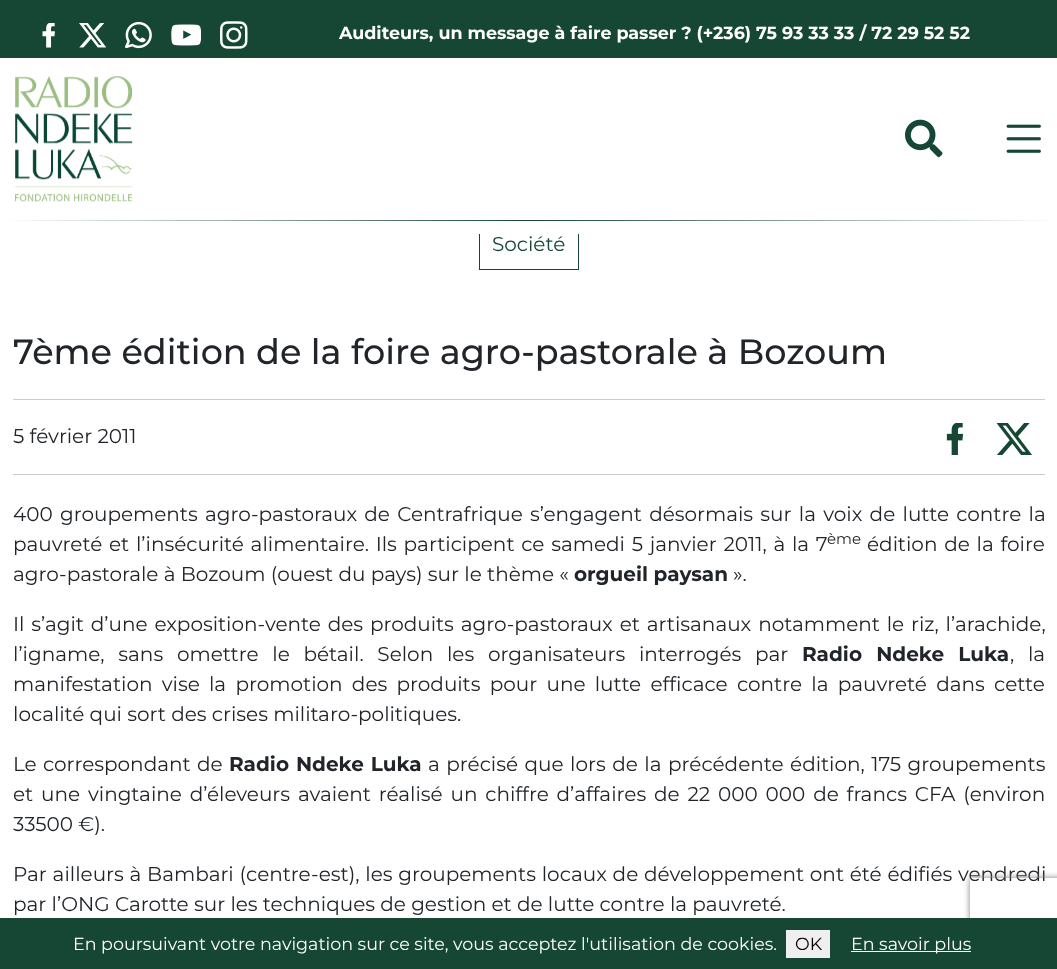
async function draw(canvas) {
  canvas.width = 1057;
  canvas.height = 969;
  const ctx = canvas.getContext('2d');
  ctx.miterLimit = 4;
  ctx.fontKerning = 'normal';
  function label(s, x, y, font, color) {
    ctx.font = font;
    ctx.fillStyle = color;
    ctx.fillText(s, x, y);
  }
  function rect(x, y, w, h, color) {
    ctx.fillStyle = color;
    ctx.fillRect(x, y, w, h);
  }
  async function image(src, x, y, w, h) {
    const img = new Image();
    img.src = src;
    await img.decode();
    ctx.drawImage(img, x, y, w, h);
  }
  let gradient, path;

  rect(0, 0, 1057, 969, '#fff');
  ctx.strokeStyle = '#154734';
  ctx.strokeRect(479.5, 219.5, 99, 50);
  rect(479, 219, 100, 15, '#fff');
  rect(0, 0, 1057, 58, '#154734');
  await image('assets/img1.png', 42, 23, 13, 25);
  await image('assets/img2.png', 79, 23, 27, 25);
  await image('assets/img3.png', 125, 21, 27, 28);
  await image('assets/img4.png', 171, 24, 30, 22);
  await image('assets/img5.png', 220, 21, 28, 28);
  label('Auditeurs, un message à faire passer ? (+236) 75 93 33 33 / 72 29 52 52', 339, 39, 'bold 17.5px Montserrat', '#fff');
  await image('assets/img6.png', 15, 76, 118, 126);
  await image('assets/img7.png', 905, 119, 38, 39);
  await image('assets/img8.png', 1006, 124, 35, 29);
  gradient = ctx.createLinearGradient(0, 221, 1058, 221);
  gradient.addColorStop(0, '#fff');
  gradient.addColorStop(0.5, '#154734');
  gradient.addColorStop(1, '#fff');
  ctx.fillStyle = gradient;
  ctx.fillRect(0, 220, 1057, 1);
  label('Société', 492, 251, '20px Montserrat', '#154734');
  label('7ème édition de la foire agro-pastorale à Bozoum', 13, 364, '500 35px Montserrat', '#212529');
  rect(13, 399, 1032, 1, '#ccc');
  rect(13, 474, 1032, 1, '#ccc');
  label('5 février 2011', 13, 443, '20px Montserrat', '#212529');
  await image('assets/img9.png', 946, 423, 18, 32);
  await image('assets/img10.png', 996, 423, 36, 32);
  ctx.wordSpacing = '2px';
  label('400 groupements agro-pastoraux de Centrafrique s’engagent désormais sur la voix de lutte contre la', 13, 521, '20px Montserrat', '#212529');
  ctx.wordSpacing = '1.5px';
  label('pauvreté et l’insécurité alimentaire. Ils participent ce samedi 5 janvier 2011, à la 7', 13, 551, '20px Montserrat', '#212529');
  ctx.wordSpacing = '0px';
  label('ème', 827, 544, '15px Montserrat', '#212529');
  ctx.wordSpacing = '1.5px';
  label('édition de la foire', 867, 551, '20px Montserrat', '#212529');
  ctx.wordSpacing = '0px';
  label('agro-pastorale à Bozoum (ouest du pays) sur le thème «', 13, 581, '20px Montserrat', '#212529');
  label('orgueil paysan', 574, 581, 'bold 20px Montserrat', '#212529');
  label('».', 733, 581, '20px Montserrat', '#212529');
  ctx.wordSpacing = '1.6px';
  label('Il s’agit d’une exposition-vente des produits agro-pastoraux et artisanaux notamment le riz, l’arachide,', 13, 631, '20px Montserrat', '#212529');
  ctx.wordSpacing = '8.5px';
  label('l’igname, sans omettre le bétail. Selon les organisateurs interrogés par', 13, 661, '20px Montserrat', '#212529');
  label('Radio Ndeke Luka', 802, 661, 'bold 20px Montserrat', '#212529');
  label(', la', 1010, 661, '20px Montserrat', '#212529');
  ctx.wordSpacing = '4px';
  label('manifestation vise la promotion des produits pour une lutte efficace contre la pauvreté dans cette', 13, 691, '20px Montserrat', '#212529');
  ctx.wordSpacing = '0px';
  label('localité qui sort des crises militaro-politiques.', 13, 721, '20px Montserrat', '#212529');
  ctx.wordSpacing = '1px';
  label('Le correspondant de', 13, 771, '20px Montserrat', '#212529');
  ctx.wordSpacing = '1.25px';
  label('Radio Ndeke Luka', 229, 771, 'bold 20px Montserrat', '#212529');
  label('a précisé que lors de la précédente édition, 175 groupements', 428, 771, '20px Montserrat', '#212529');
  ctx.wordSpacing = '2.6px';
  label('et une vingtaine d’éleveurs avaient réalisé un chiffre d’affaires de 22 000 000 de francs CFA (environ', 13, 801, '20px Montserrat', '#212529');
  ctx.wordSpacing = '0px';
  label('33500 €).', 13, 831, '20px Montserrat', '#212529');
  ctx.wordSpacing = '0.5px';
  label('Par ailleurs à Bambari (centre-est), les groupements locaux de développement ont été édifiés vendredi', 13, 881, '20px Montserrat', '#212529');
  ctx.wordSpacing = '0px';
  label('par l’ONG Carotte sur les techniques de gestion et de lutte contre la pauvreté.', 13, 911, '20px Montserrat', '#212529');
  ctx.save();
  path = new Path2D('M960 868H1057V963H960ZM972.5 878H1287.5C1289 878 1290 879 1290 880.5V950.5C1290 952 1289 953 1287.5 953H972.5C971 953 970 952 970 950.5V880.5C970 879 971 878 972.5 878Z');
  ctx.clip(path, 'evenodd');
  ctx.fillStyle = '#808080';
  ctx.filter = 'blur(3px)';
  ctx.beginPath();
  ctx.roundRect(970, 878, 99, 75, 2.5);
  ctx.fill();
  ctx.filter = 'none';
  ctx.restore();
  rect(0, 918, 1057, 51, '#154734');
  label('En poursuivant votre navigation sur ce site, vous acceptez l\'utilisation de cookies.', 73, 950, '17.5px Montserrat', '#fff');
  rect(786, 930, 44, 28, '#efefef');
  label('OK', 795, 950, '17.5px Montserrat', '#000');
  rect(851, 951, 120, 1, '#fff');
  label('En savoir plus', 851, 950, '17.5px Montserrat', '#fff');
}

draw(document.querySelector('canvas'));
